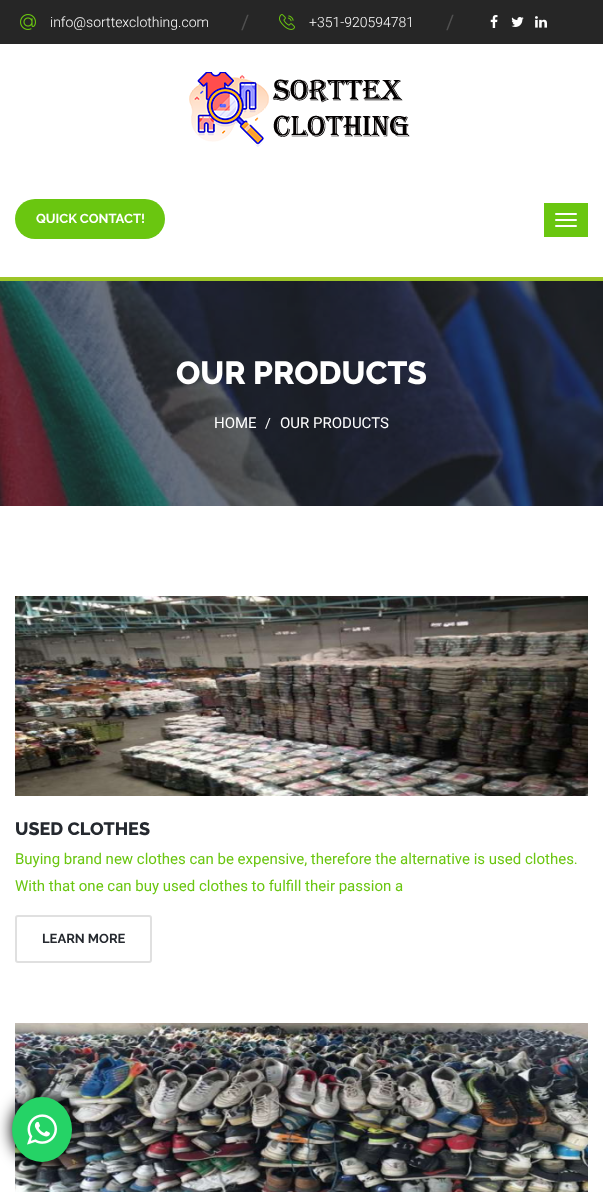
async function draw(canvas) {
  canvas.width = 603;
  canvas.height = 1192;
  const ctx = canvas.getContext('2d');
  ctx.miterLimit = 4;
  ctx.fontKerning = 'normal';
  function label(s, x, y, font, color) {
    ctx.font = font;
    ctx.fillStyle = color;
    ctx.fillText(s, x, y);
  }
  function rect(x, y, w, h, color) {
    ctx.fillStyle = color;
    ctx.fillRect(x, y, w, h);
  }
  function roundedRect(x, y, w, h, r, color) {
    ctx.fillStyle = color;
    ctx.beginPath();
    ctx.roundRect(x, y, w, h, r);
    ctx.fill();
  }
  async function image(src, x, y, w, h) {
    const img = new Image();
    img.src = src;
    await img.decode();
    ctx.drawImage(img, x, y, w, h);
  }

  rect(0, 0, 603, 1192, '#fff');
  rect(0, 0, 603, 44, '#262626');
  rect(0, 277, 603, 4, '#9dc527');
  await image('assets/img1.png', 20, 14, 16, 16);
  label('info@sorttexclothing.com', 50, 27, '300 14px Roboto', '#fff');
  label('/', 241, 29, '20px Roboto', '#505050');
  await image('assets/img2.png', 279, 14, 16, 16);
  label('+351-920594781', 309, 27, '300 14px Roboto', '#fff');
  label('/', 446, 29, '20px Roboto', '#505050');
  await image('assets/img3.png', 490, 15, 8, 13);
  await image('assets/img4.png', 511, 17, 13, 10);
  await image('assets/img5.png', 535, 16, 12, 12);
  await image('assets/img6.png', 189, 72, 221, 75);
  roundedRect(15, 199, 150, 40, 20, '#6ac610');
  label('QUICK CONTACT!', 36, 223, 'bold 13px Raleway', '#fff');
  rect(544, 203, 44, 34, '#6ac610');
  roundedRect(555, 213, 22, 2, 1, '#fff');
  roundedRect(555, 219, 22, 2, 1, '#fff');
  roundedRect(555, 225, 22, 2, 1, '#fff');
  await image('assets/img7.png', 0, 281, 603, 225);
  label('OUR PRODUCTS', 176, 384, '800 32px Raleway', '#fff');
  label('HOME', 214, 428, '15px Roboto', '#fff');
  label('/', 265, 428, '14px Roboto', '#fff');
  label('OUR PRODUCTS', 280, 428, '15px Roboto', '#fff');
  await image('assets/img8.png', 15, 596, 573, 200);
  label('USED CLOTHES', 15, 835, '800 18px Raleway', '#25292f');
  label('Buying brand new clothes can be expensive, therefore the alternative is used clothes.', 15, 864, '15px Roboto', '#6ac610');
  label('With that one can buy used clothes to fulfill their passion a', 15, 891, '15px Roboto', '#6ac610');
  ctx.beginPath();
  ctx.roundRect(16, 916, 135, 46, 2);
  ctx.strokeStyle = '#e0e0e0';
  ctx.lineWidth = 2;
  ctx.stroke();
  label('LEARN MORE', 42, 943, 'bold 13px Raleway', '#25292f');
  await image('assets/img9.png', 15, 1023, 573, 169);
  ctx.fillStyle = '#000';
  ctx.filter = 'blur(7.5px)';
  ctx.beginPath();
  ctx.roundRect(12, 1097, 60, 65, 30);
  ctx.fill();
  ctx.filter = 'none';
  ctx.fillStyle = '#25d366';
  ctx.beginPath();
  ctx.ellipse(42, 1129.5, 30, 32.5, 0, 0, 2 * Math.PI);
  ctx.fill();
  await image('assets/img10.png', 27, 1114, 30, 31);
}

draw(document.querySelector('canvas'));
